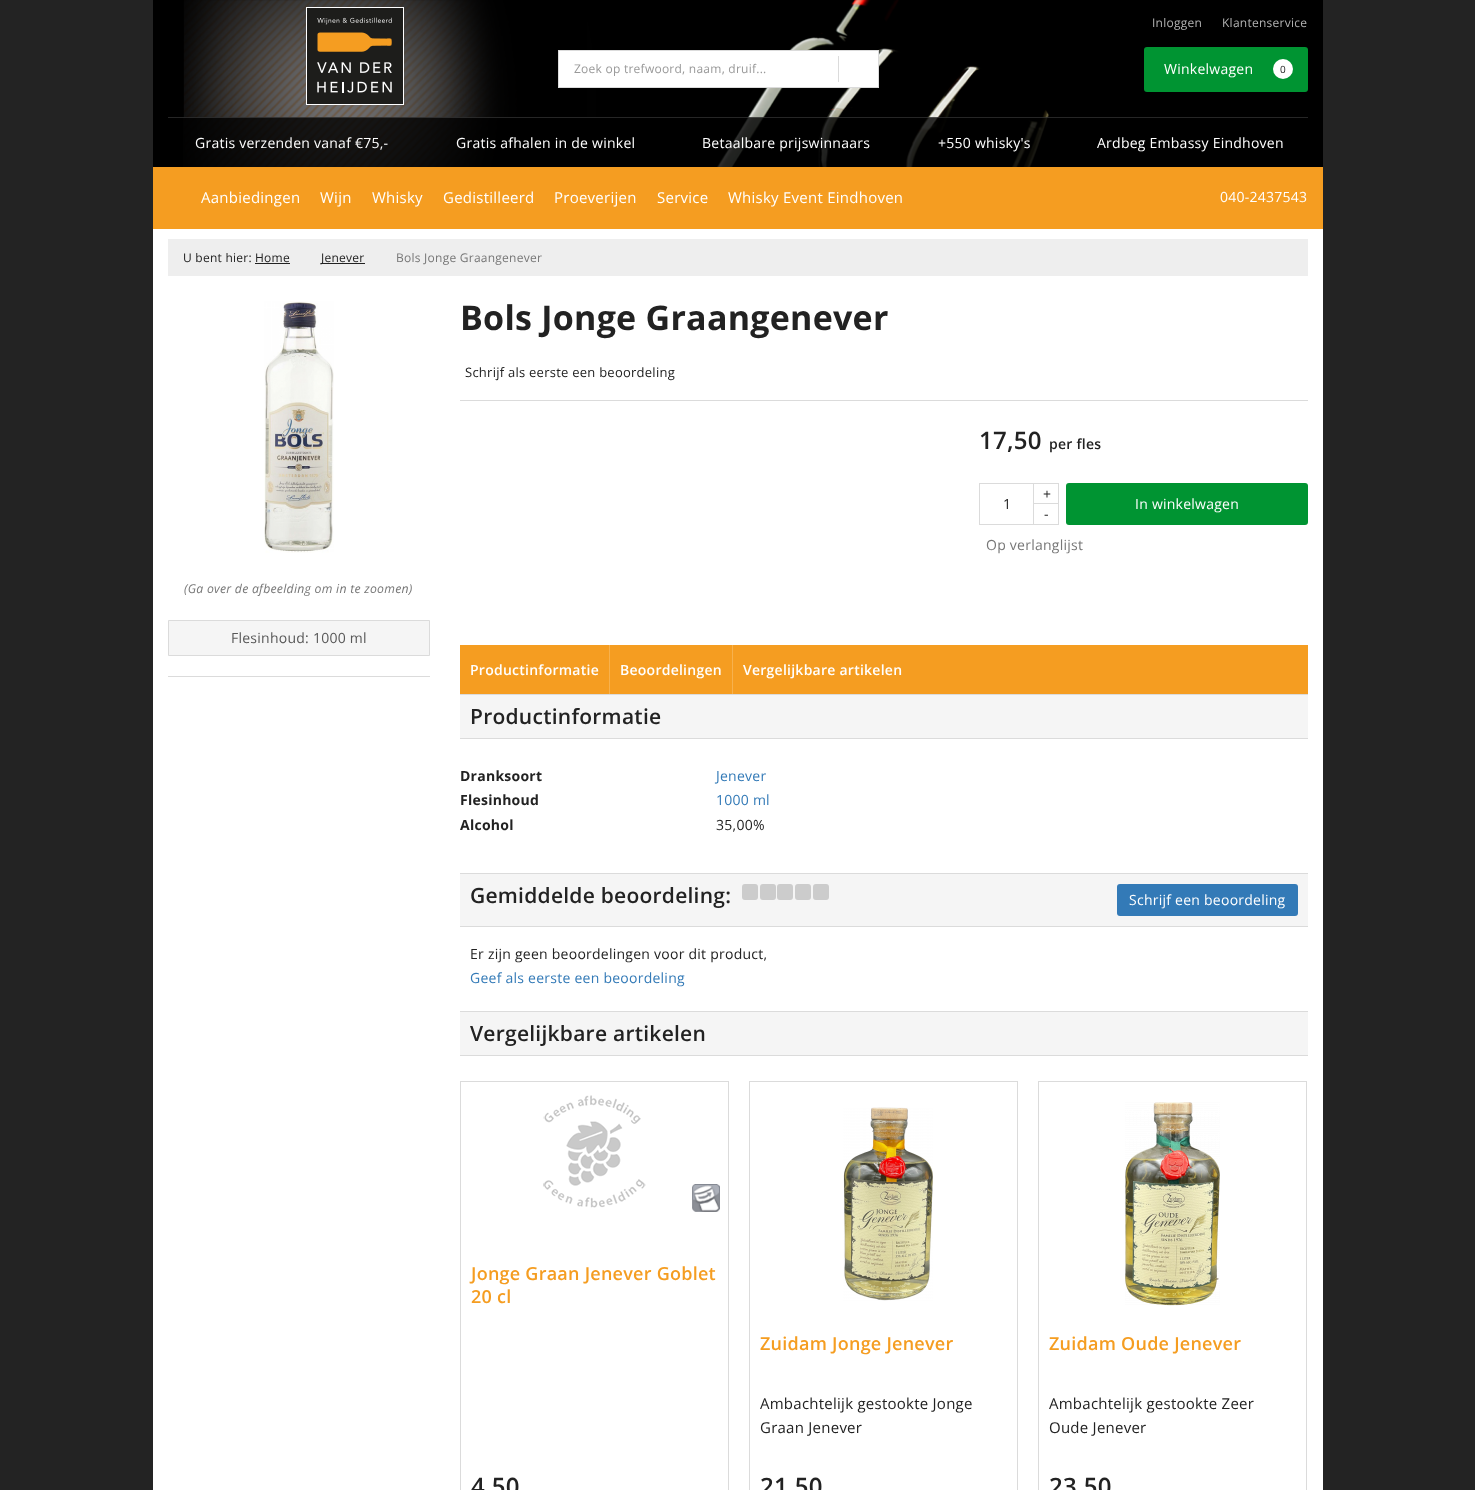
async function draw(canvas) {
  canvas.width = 1475;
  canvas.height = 1490;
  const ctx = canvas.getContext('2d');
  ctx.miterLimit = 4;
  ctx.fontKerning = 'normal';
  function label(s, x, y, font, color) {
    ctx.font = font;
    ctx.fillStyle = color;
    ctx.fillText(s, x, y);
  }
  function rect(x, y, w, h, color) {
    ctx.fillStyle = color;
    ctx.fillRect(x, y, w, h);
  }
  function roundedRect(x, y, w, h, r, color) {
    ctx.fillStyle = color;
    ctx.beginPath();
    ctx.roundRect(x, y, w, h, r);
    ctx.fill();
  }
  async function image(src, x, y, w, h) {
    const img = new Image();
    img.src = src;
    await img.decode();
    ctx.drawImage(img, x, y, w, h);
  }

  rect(0, 0, 1475, 1490, '#232323');
  await image('assets/img1.png', 153, 0, 1170, 167);
  await image('assets/img2.png', 306, 7, 98, 98);
  ctx.letterSpacing = '0.25px';
  label('Inloggen', 1152, 27, '12px Open Sans', '#b3b3b3');
  label('Klantenservice', 1222, 27, '12px Open Sans', '#b3b3b3');
  ctx.strokeStyle = '#dbdbdb';
  ctx.strokeRect(558.5, 50.5, 320, 37);
  rect(559, 51, 319, 36, '#fff');
  rect(838, 56, 1, 26, '#dbdbdb');
  label('Zoek op trefwoord, naam, druif...', 574, 73, '12px Open Sans', '#999');
  roundedRect(1144, 47, 164, 45, 3, '#009432');
  label('Winkelwagen', 1164, 74, '14px Open Sans', '#fff');
  ctx.beginPath();
  ctx.arc(1283, 69, 10, 0, 2 * Math.PI);
  ctx.fill();
  label('0', 1280, 73, '10px Open Sans', '#222');
  rect(184, 117, 864, 50, '#000000cc');
  rect(168, 117, 1140, 1, '#ffffff26');
  label('Gratis verzenden vanaf €75,-', 195, 148, '14px Open Sans', '#fff');
  label('Gratis afhalen in de winkel', 456, 148, '14px Open Sans', '#fff');
  label('Betaalbare prijswinnaars', 702, 148, '14px Open Sans', '#fff');
  label('+550 whisky\'s', 938, 148, '14px Open Sans', '#fff');
  label('Ardbeg Embassy Eindhoven', 1097, 148, '14px Open Sans', '#fff');
  rect(153, 229, 1170, 1261, '#fff');
  rect(153, 167, 1170, 62, '#f59d21');
  label('Aanbiedingen', 201, 203, '15px Open Sans', '#fff');
  label('Wijn', 320, 203, '15px Open Sans', '#fff');
  label('Whisky', 372, 203, '15px Open Sans', '#fff');
  label('Gedistilleerd', 443, 203, '15px Open Sans', '#fff');
  label('Proeverijen', 554, 203, '15px Open Sans', '#fff');
  label('Service', 657, 203, '15px Open Sans', '#fff');
  label('Whisky Event Eindhoven', 728, 203, '15px Open Sans', '#fff');
  label('040-2437543', 1220, 202, '14px Open Sans', '#fff');
  rect(168, 239, 1140, 37, '#eee');
  label('U bent hier:', 183, 262, '12px Open Sans', '#222');
  label('Home', 255, 262, '12px Open Sans', '#222');
  rect(255, 263, 35, 1, '#222');
  rect(321, 263, 44, 1, '#222');
  label('Jenever', 321, 262, '12px Open Sans', '#222');
  label('Bols Jonge Graangenever', 396, 262, '12px Open Sans', '#777');
  await image('assets/img3.png', 264, 301, 70, 252);
  label('(Ga over de afbeelding om in te zoomen)', 184, 593, 'italic 12.25px Open Sans', '#777');
  ctx.fillStyle = '#f5f5f5';
  ctx.beginPath();
  ctx.rect(168.5, 620.5, 261, 35);
  ctx.fill();
  ctx.stroke();
  label('Flesinhoud: 1000 ml', 231, 643, '14px Open Sans', '#585858');
  rect(168, 676, 262, 1, '#dbdbdb');
  rect(460, 400, 848, 1, '#dbdbdb');
  label('Bols Jonge Graangenever', 460, 330, 'bold 34px Open Sans', '#222');
  label('Schrijf als eerste een beoordeling', 465, 377, '13px Open Sans', '#222');
  label('17,50', 979, 449, '600 24px Open Sans', '#222');
  label('per fles', 1049, 449, '600 14px Open Sans', '#222');
  ctx.strokeRect(979.5, 483.5, 54, 41);
  label('1', 1003, 509, '14px Open Sans', '#222');
  ctx.strokeRect(1033.5, 483.5, 25, 21);
  label('+', 1043, 499, '14px Open Sans', '#222');
  rect(1034, 504, 24, 1, '#fff');
  ctx.strokeRect(1033.5, 503.5, 25, 21);
  label('-', 1044, 519, '14px Open Sans', '#222');
  roundedRect(1066, 483, 242, 42, 3, '#009432');
  label('In winkelwagen', 1135, 509, '14px Open Sans', '#fff');
  label('Op verlanglijst', 986, 550, '14px Open Sans', '#777');
  rect(460, 645, 848, 49, '#f59d21');
  rect(609, 645, 1, 49, '#f7b14d');
  label('Productinformatie', 470, 675, '600 14px Open Sans', '#fff');
  rect(732, 645, 1, 49, '#f7b14d');
  label('Beoordelingen', 620, 675, '600 14px Open Sans', '#fff');
  label('Vergelijkbare artikelen', 743, 675, '600 14px Open Sans', '#fff');
  rect(460, 695, 848, 43, '#f5f5f5');
  rect(460, 694, 848, 1, '#dbdbdb');
  rect(460, 738, 848, 1, '#dbdbdb');
  label('Productinformatie', 470, 724, '600 21px Open Sans', '#222');
  label('Dranksoort', 460, 781, 'bold 14px Open Sans', '#222');
  label('Jenever', 716, 781, '14px Open Sans', '#337ab7');
  label('Flesinhoud', 460, 805, 'bold 14px Open Sans', '#222');
  label('1000 ml', 716, 805, '14px Open Sans', '#337ab7');
  label('Alcohol', 460, 830, 'bold 14px Open Sans', '#222');
  label('35,00%', 716, 830, '14px Open Sans', '#222');
  rect(460, 874, 848, 52, '#f5f5f5');
  rect(460, 873, 848, 1, '#dbdbdb');
  rect(460, 926, 848, 1, '#dbdbdb');
  label('Gemiddelde beoordeling:', 470, 903, '600 21px Open Sans', '#222');
  roundedRect(742, 884, 16, 16, 3, '#ccc');
  roundedRect(760, 884, 16, 16, 3, '#ccc');
  roundedRect(777, 884, 16, 16, 3, '#ccc');
  roundedRect(795, 884, 16, 16, 3, '#ccc');
  roundedRect(813, 884, 16, 16, 3, '#ccc');
  roundedRect(1117, 884, 181, 32, 3, '#337ab7');
  label('Schrijf een beoordeling', 1129, 905, '14px Open Sans', '#fff');
  label('Er zijn geen beoordelingen voor dit product,', 470, 959, '14px Open Sans', '#222');
  label('Geef als eerste een beoordeling', 470, 983, '14px Open Sans', '#337ab7');
  rect(460, 1012, 848, 43, '#f5f5f5');
  rect(460, 1011, 848, 1, '#dbdbdb');
  rect(460, 1055, 848, 1, '#dbdbdb');
  label('Vergelijkbare artikelen', 470, 1041, '600 21px Open Sans', '#222');
  ctx.strokeRect(460.5, 1081.5, 268, 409);
  await image('assets/img4.png', 543, 1095, 103, 113);
  await image('assets/img5.png', 692, 1184, 28, 28);
  label('Jonge Graan Jenever Goblet', 471, 1280, '600 18px Open Sans', '#f59d21');
  label('20 cl', 471, 1303, '600 18px Open Sans', '#f59d21');
  label('4,50', 471, 1495, '600 24px Open Sans', '#222');
  ctx.strokeRect(749.5, 1081.5, 268, 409);
  await image('assets/img6.png', 843, 1107, 90, 194);
  label('Zuidam Jonge Jenever', 760, 1350, '600 18px Open Sans', '#f59d21');
  label('Ambachtelijk gestookte Jonge', 760, 1409, '15px Open Sans', '#222');
  label('Graan Jenever', 760, 1433, '15px Open Sans', '#222');
  label('21,50', 760, 1495, '600 24px Open Sans', '#222');
  ctx.strokeRect(1038.5, 1081.5, 268, 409);
  await image('assets/img7.png', 1125, 1102, 95, 204);
  label('Zuidam Oude Jenever', 1049, 1350, '600 18px Open Sans', '#f59d21');
  label('Ambachtelijk gestookte Zeer', 1049, 1409, '15px Open Sans', '#222');
  label('Oude Jenever', 1049, 1433, '15px Open Sans', '#222');
  label('23,50', 1049, 1495, '600 24px Open Sans', '#222');
}

draw(document.querySelector('canvas'));
